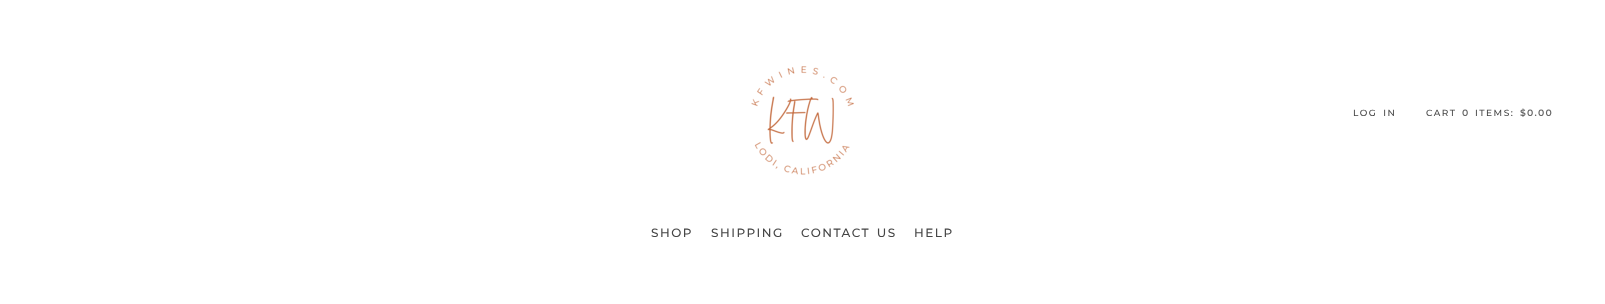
async function draw(canvas) {
  canvas.width = 1605;
  canvas.height = 304;
  const ctx = canvas.getContext('2d');
  ctx.miterLimit = 4;
  ctx.fontKerning = 'normal';
  function label(s, x, y, font, color) {
    ctx.font = font;
    ctx.fillStyle = color;
    ctx.fillText(s, x, y);
  }
  function rect(x, y, w, h, color) {
    ctx.fillStyle = color;
    ctx.fillRect(x, y, w, h);
  }
  async function image(src, x, y, w, h) {
    const img = new Image();
    img.src = src;
    await img.decode();
    ctx.drawImage(img, x, y, w, h);
  }

  rect(0, 0, 1605, 304, '#fff');
  await image('assets/img1.png', 751, 66, 103, 109);
  ctx.letterSpacing = '1.5px';
  ctx.wordSpacing = '2px';
  label('LOG IN', 1353, 116, '500 9px Montserrat', '#454545');
  ctx.wordSpacing = '0px';
  label('CART', 1426, 116, '500 9px Montserrat', '#454545');
  label('0', 1462, 116, 'bold 9px Montserrat', '#666');
  label('ITEMS:', 1475, 116, '500 9px Montserrat', '#454545');
  label('$0.00', 1520, 116, 'bold 9px Montserrat', '#666');
  label('SHOP', 651, 237, '500 12px Montserrat', '#454545');
  label('SHIPPING', 711, 237, '500 12px Montserrat', '#454545');
  ctx.wordSpacing = '2px';
  label('CONTACT US', 801, 237, '500 12px Montserrat', '#454545');
  ctx.wordSpacing = '0px';
  label('HELP', 914, 237, '500 12px Montserrat', '#454545');
}

draw(document.querySelector('canvas'));
